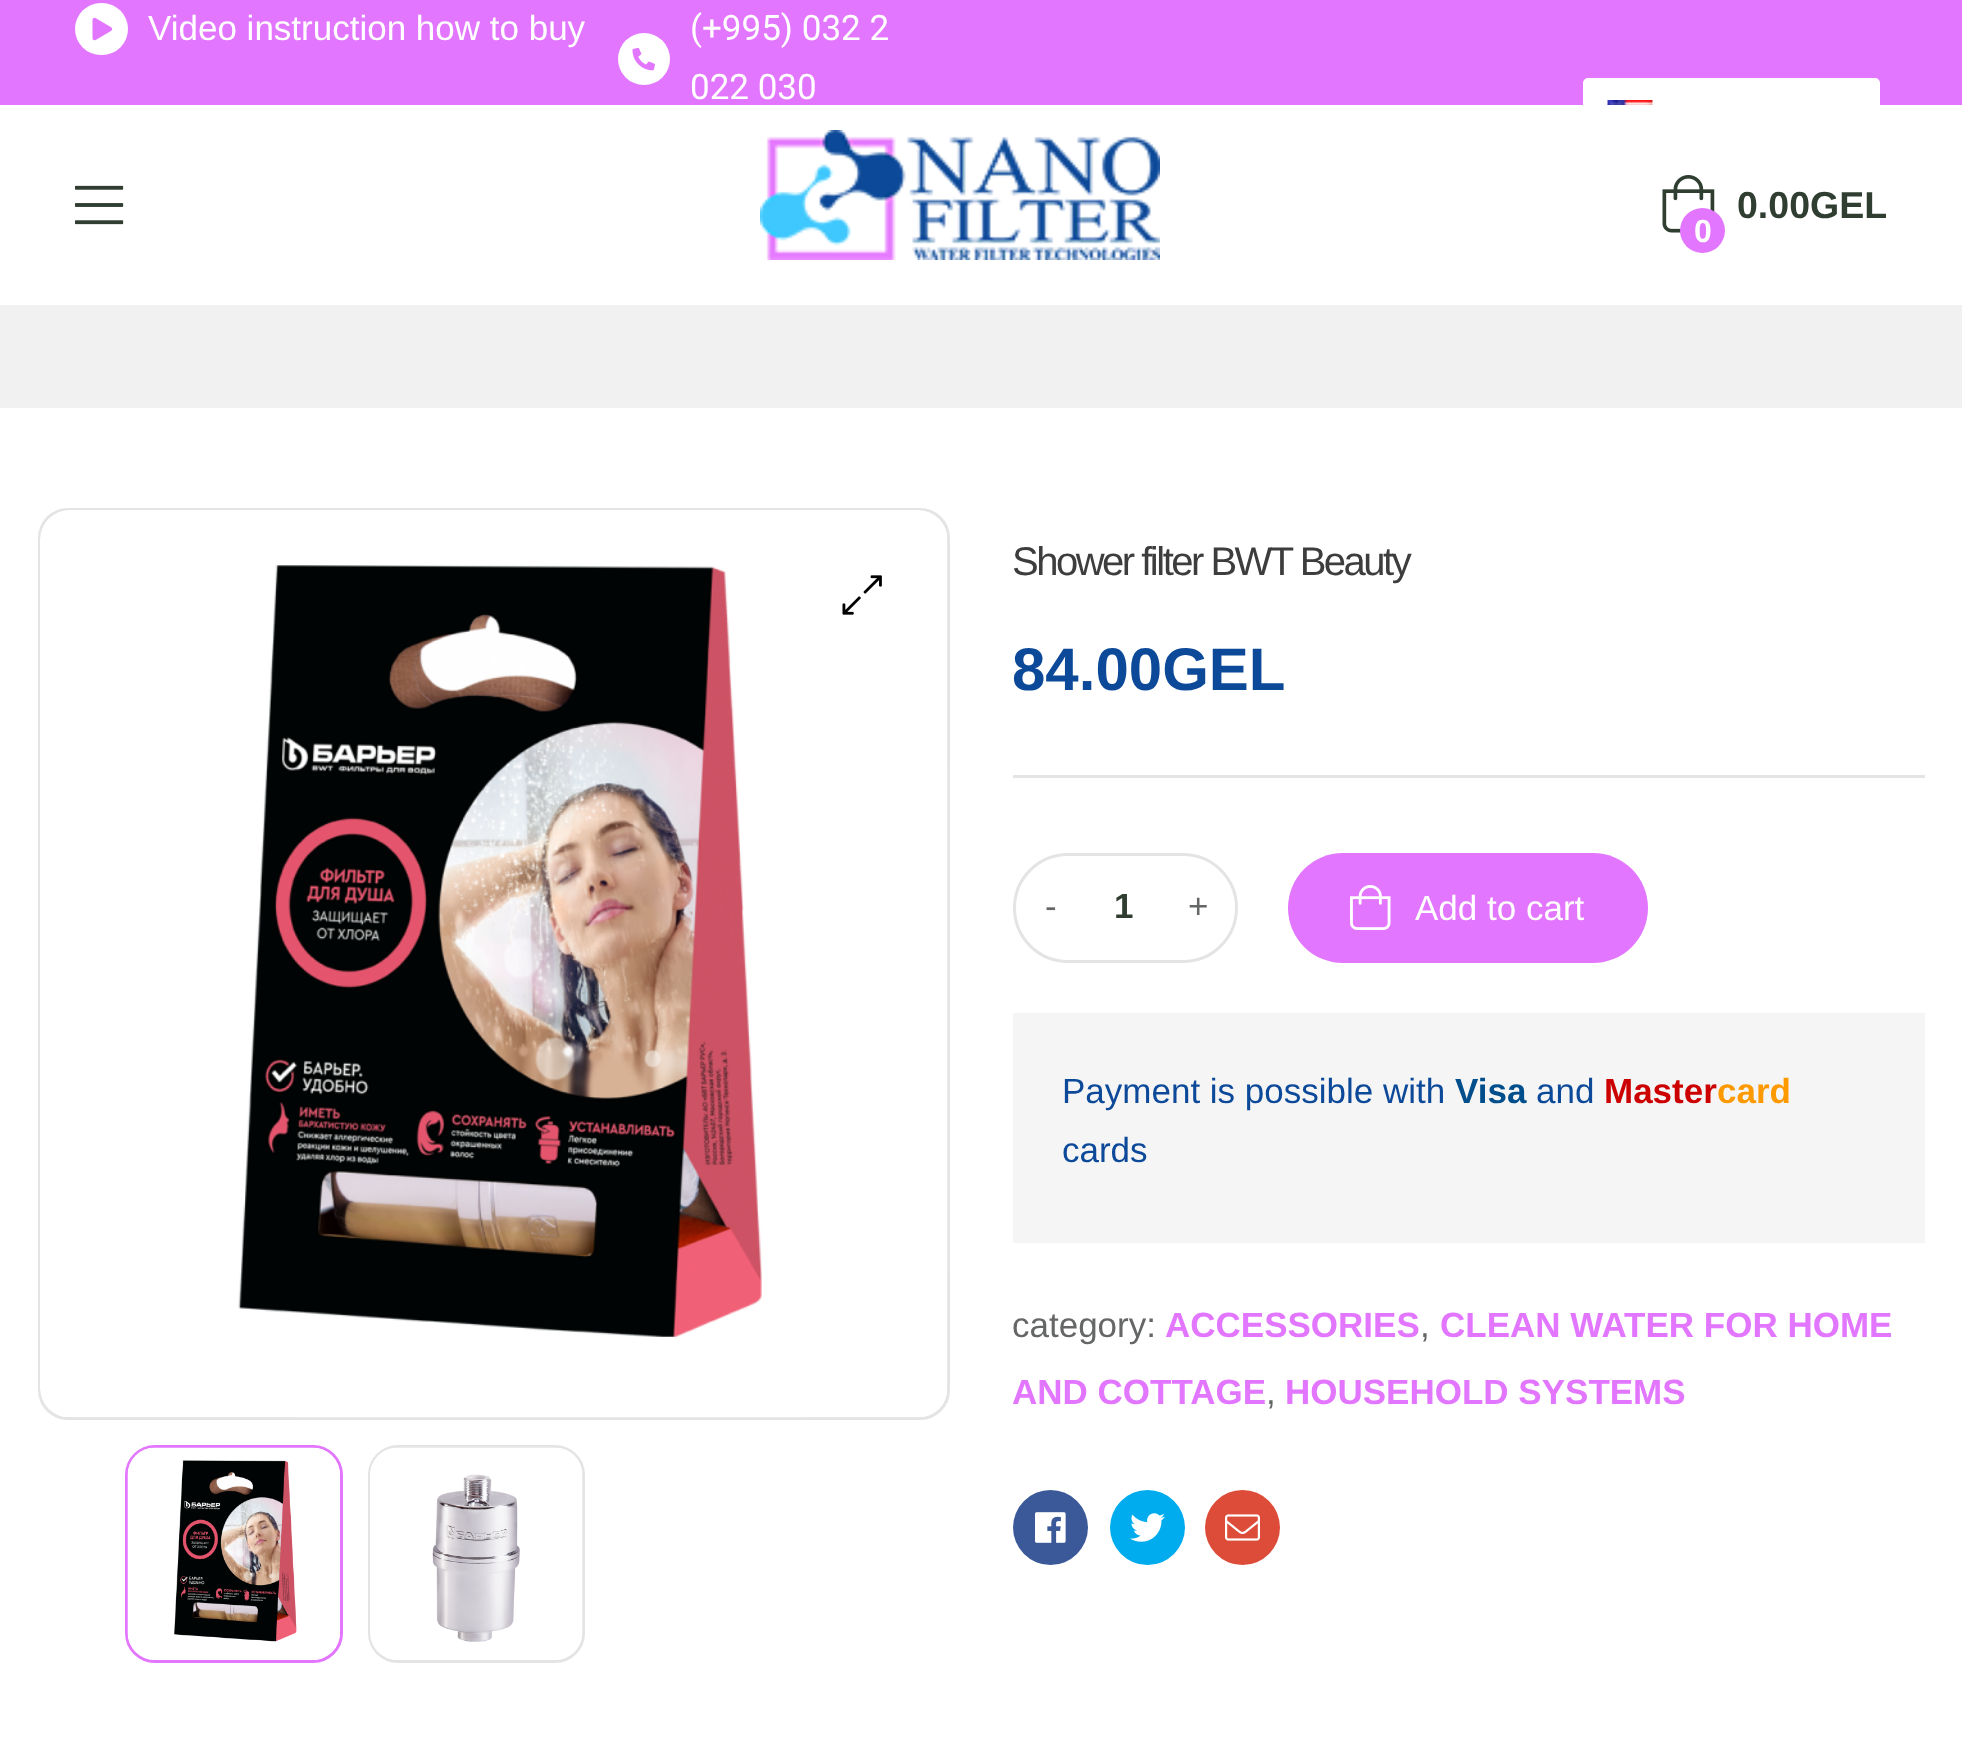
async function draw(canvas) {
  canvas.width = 1962;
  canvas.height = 1742;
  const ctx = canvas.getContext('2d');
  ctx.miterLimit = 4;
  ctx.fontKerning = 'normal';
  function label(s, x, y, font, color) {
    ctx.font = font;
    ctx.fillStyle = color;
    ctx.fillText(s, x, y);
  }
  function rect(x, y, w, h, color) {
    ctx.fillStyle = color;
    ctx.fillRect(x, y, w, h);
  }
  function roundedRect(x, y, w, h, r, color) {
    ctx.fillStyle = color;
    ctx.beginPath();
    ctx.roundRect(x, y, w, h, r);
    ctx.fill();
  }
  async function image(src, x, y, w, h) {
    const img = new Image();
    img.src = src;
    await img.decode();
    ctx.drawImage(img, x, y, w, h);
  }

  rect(0, 0, 1962, 1742, '#fff');
  rect(0, 0, 1962, 105, '#e376ff');
  roundedRect(75, 3, 53, 52, 26, '#fff');
  await image('assets/img1.png', 92, 17, 21, 24);
  label('Video instruction how to buy', 148, 40, '35px Liberation Sans', '#fff');
  ctx.beginPath();
  ctx.arc(644, 59, 26, 0, 2 * Math.PI);
  ctx.fill();
  await image('assets/img2.png', 632, 47, 23, 24);
  label('(+995) 032 2', 690, 40, '35px Roboto', '#fff');
  label('022 030', 690, 99, '35px Roboto', '#fff');
  ctx.beginPath();
  ctx.roundRect(1581.5, 76.5, 300, 85, 6.5);
  ctx.fill();
  ctx.strokeStyle = '#e376ff';
  ctx.lineWidth = 3;
  ctx.stroke();
  await image('assets/img3.png', 1607, 100, 46, 5);
  rect(1580, 105, 303, 58, '#fff');
  await image('assets/img4.png', 75, 185, 49, 40);
  await image('assets/img5.png', 760, 130, 400, 130);
  await image('assets/img6.png', 1662, 175, 53, 58);
  label('0.00GEL', 1737, 218, 'bold 37.5px Liberation Sans', '#2f3e30');
  ctx.fillStyle = '#e376ff';
  ctx.beginPath();
  ctx.arc(1702.5, 230.5, 22.5, 0, 2 * Math.PI);
  ctx.fill();
  label('0', 1694, 242, 'bold 32px Liberation Sans', '#fff');
  rect(0, 305, 1962, 103, '#f1f1f1');
  ctx.beginPath();
  ctx.roundRect(39.5, 509.5, 909, 909, 28.5);
  ctx.strokeStyle = '#e4e4e4';
  ctx.stroke();
  await image('assets/img7.png', 40, 510, 908, 908);
  await image('assets/img8.png', 842, 575, 40, 40);
  ctx.beginPath();
  ctx.roundRect(126.5, 1446.5, 215, 215, 28.5);
  ctx.strokeStyle = '#e376ff';
  ctx.stroke();
  await image('assets/img9.png', 127, 1447, 213, 213);
  ctx.beginPath();
  ctx.roundRect(369.5, 1446.5, 214, 215, 28.5);
  ctx.strokeStyle = '#e4e4e4';
  ctx.stroke();
  await image('assets/img10.png', 370, 1447, 213, 213);
  ctx.letterSpacing = '-2.5px';
  label('Shower filter BWT Beauty', 1012, 575, '40px Liberation Sans', '#3d3d3d');
  rect(1013, 775, 912, 3, '#e4e4e4');
  ctx.letterSpacing = '0px';
  label('84.00GEL', 1012, 690, 'bold 60px Liberation Sans', '#0c4999');
  ctx.beginPath();
  ctx.roundRect(1014.5, 854.5, 222, 107, 53.5);
  ctx.stroke();
  label('-', 1045, 918, '35px Liberation Sans', '#656766');
  label('1', 1114, 918, 'bold 35px Liberation Sans', '#2f3e30');
  label('+', 1188, 918, '35px Liberation Sans', '#656766');
  roundedRect(1288, 853, 360, 110, 55, '#e376ff');
  await image('assets/img11.png', 1350, 885, 41, 45);
  label('Add to cart', 1415, 920, '35px Liberation Sans', '#fff');
  rect(1013, 1013, 912, 230, '#f5f5f5');
  label('Payment is possible with', 1062, 1103, '35px Liberation Sans', '#0c4999');
  label('Visa', 1455, 1103, 'bold 35px Liberation Sans', '#004e8c');
  label('and', 1536, 1103, '35px Liberation Sans', '#0c4999');
  label('Master', 1604, 1103, 'bold 35px Liberation Sans', '#cc0001');
  label('card', 1717, 1103, 'bold 35px Liberation Sans', '#fe9900');
  label('cards', 1062, 1162, '35px Liberation Sans', '#0c4999');
  label('category:', 1012, 1337, '35px Liberation Sans', '#656766');
  label('ACCESSORIES', 1165, 1337, 'bold 35px Liberation Sans', '#e376ff');
  label(',', 1420, 1337, '35px Liberation Sans', '#656766');
  label('CLEAN WATER FOR HOME', 1440, 1337, 'bold 35px Liberation Sans', '#e376ff');
  label('AND COTTAGE', 1012, 1404, 'bold 35px Liberation Sans', '#e376ff');
  label(',', 1266, 1404, '35px Liberation Sans', '#656766');
  label('HOUSEHOLD SYSTEMS', 1285, 1404, 'bold 35px Liberation Sans', '#e376ff');
  ctx.fillStyle = '#3b5998';
  ctx.beginPath();
  ctx.arc(1050.5, 1527.5, 37.5, 0, 2 * Math.PI);
  ctx.fill();
  await image('assets/img12.png', 1035, 1512, 31, 31);
  ctx.fillStyle = '#00aced';
  ctx.beginPath();
  ctx.arc(1147.5, 1527.5, 37.5, 0, 2 * Math.PI);
  ctx.fill();
  await image('assets/img13.png', 1130, 1513, 35, 29);
  ctx.fillStyle = '#dd4b39';
  ctx.beginPath();
  ctx.arc(1242.5, 1527.5, 37.5, 0, 2 * Math.PI);
  ctx.fill();
  await image('assets/img14.png', 1225, 1514, 35, 27);
}

draw(document.querySelector('canvas'));
